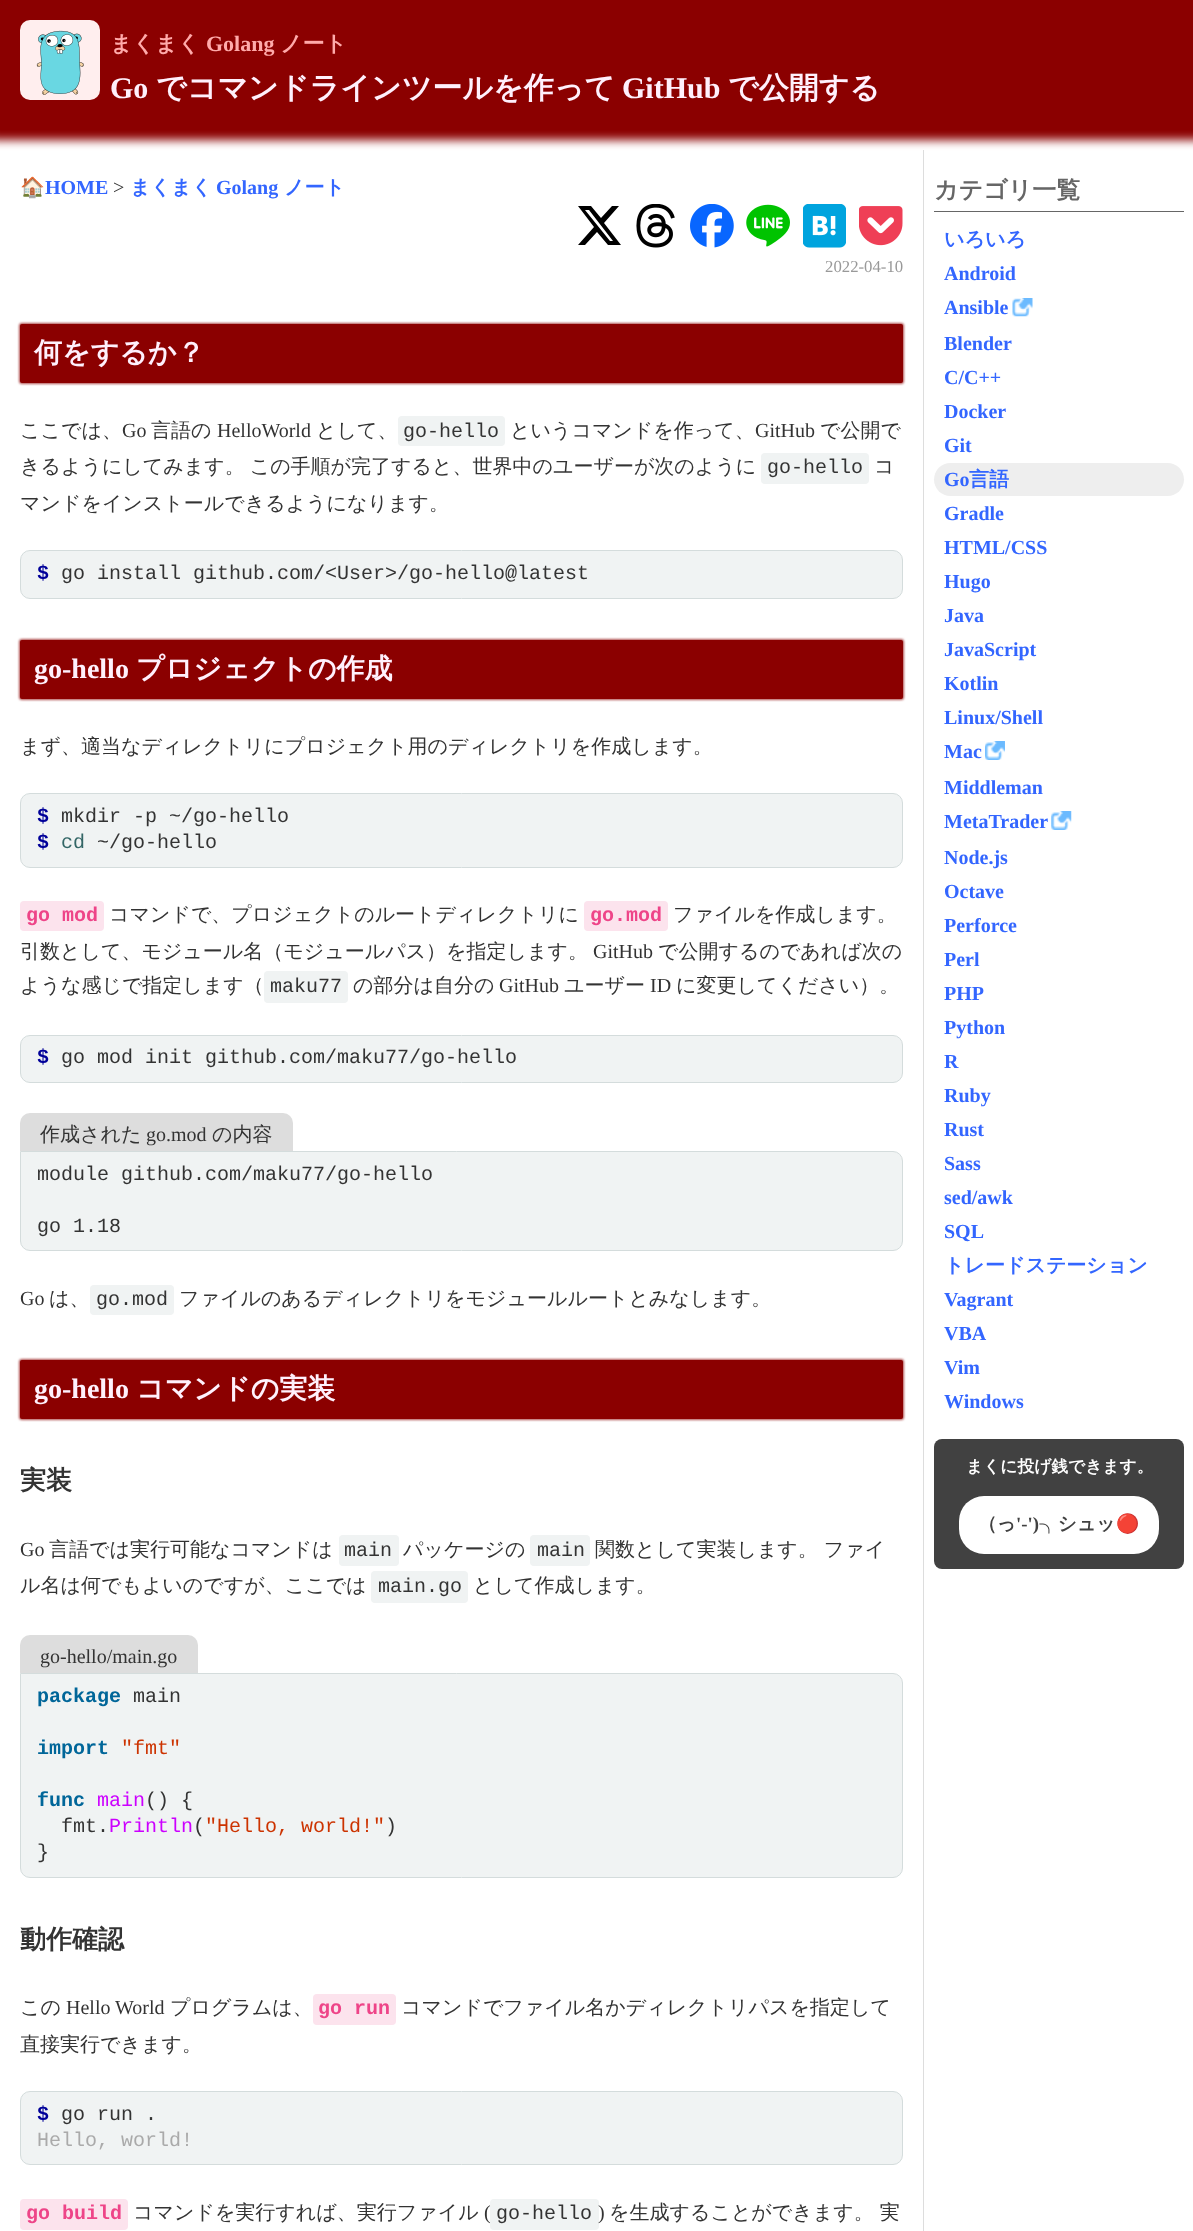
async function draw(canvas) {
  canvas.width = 1193;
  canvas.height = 2231;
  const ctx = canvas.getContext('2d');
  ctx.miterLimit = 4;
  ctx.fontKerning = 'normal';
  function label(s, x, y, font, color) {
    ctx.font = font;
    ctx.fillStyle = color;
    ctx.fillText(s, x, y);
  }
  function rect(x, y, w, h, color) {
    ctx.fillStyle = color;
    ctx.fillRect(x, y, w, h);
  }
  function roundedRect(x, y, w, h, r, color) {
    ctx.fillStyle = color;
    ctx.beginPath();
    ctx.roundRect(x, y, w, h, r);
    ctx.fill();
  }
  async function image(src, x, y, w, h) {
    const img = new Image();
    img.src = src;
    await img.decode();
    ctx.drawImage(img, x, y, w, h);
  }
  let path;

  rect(0, 0, 1193, 2231, '#fff');
  ctx.fillStyle = '#8b0000';
  ctx.filter = 'blur(5px)';
  ctx.beginPath();
  ctx.rect(-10, -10, 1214, 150);
  ctx.fill();
  ctx.filter = 'none';
  rect(0, 0, 1193, 130, '#8b0000');
  roundedRect(20, 20, 80, 80, 10, '#fee');
  await image('assets/img1.png', 36, 30, 48, 65);
  label('まくまく', 110, 51, 'bold 22px WenQuanYi Zen Hei', '#faa');
  label('Golang', 206, 51, 'bold 22px Liberation Serif', '#faa');
  label('ノート', 280, 51, 'bold 22px WenQuanYi Zen Hei', '#faa');
  label('Go', 110, 98, 'bold 30px Liberation Serif', '#fff0fc');
  label('でコマンドラインツールを作って', 156, 98, 'bold 30px WenQuanYi Zen Hei', '#fff0fc');
  label('GitHub', 622, 98, 'bold 30px Liberation Serif', '#fff0fc');
  label('で公開する', 728, 98, 'bold 30px WenQuanYi Zen Hei', '#fff0fc');
  label('🏠', 20, 194, 'bold 20px Noto Color Emoji', '#36f');
  label('HOME', 45, 194, 'bold 20px Liberation Serif', '#36f');
  label('>', 113, 194, '20px Liberation Serif', '#333');
  label('まくまく', 130, 194, 'bold 20px WenQuanYi Zen Hei', '#36f');
  label('Golang', 216, 194, 'bold 20px Liberation Serif', '#36f');
  label('ノート', 284, 194, 'bold 20px WenQuanYi Zen Hei', '#36f');
  ctx.fillStyle = '#000';
  path = new Path2D('M612 206H619L604 223L621 245H608L597 232L585 245H578L594 227L578 206H591L601 218ZM610 241H613L589 210H585Z');
  ctx.fill(path);
  await image('assets/img2.png', 636, 204, 39, 44);
  await image('assets/img3.png', 690, 204, 44, 44);
  await image('assets/img4.png', 746, 204, 44, 43);
  await image('assets/img5.png', 803, 204, 43, 44);
  await image('assets/img6.png', 859, 206, 44, 40);
  label('2022-04-10', 825, 272, '16.75px Liberation Serif', '#999');
  ctx.fillStyle = '#ae4d4d';
  ctx.filter = 'blur(1px)';
  ctx.beginPath();
  ctx.roundRect(19, 323, 885, 61, 3);
  ctx.fill();
  ctx.filter = 'none';
  roundedRect(20, 324, 883, 59, 2, '#8b0000');
  label('何をするか？', 34, 362, 'bold 28px WenQuanYi Zen Hei', '#fff0fc');
  label('ここでは、', 20, 437, '500 20px WenQuanYi Zen Hei', '#333');
  label('Go', 122, 437, '20px Liberation Serif', '#333');
  label('言語の', 151, 437, '500 20px WenQuanYi Zen Hei', '#333');
  label('HelloWorld', 217, 437, '20px Liberation Serif', '#333');
  label('として、', 316, 437, '500 20px WenQuanYi Zen Hei', '#333');
  roundedRect(398, 416, 107, 30, 4, '#f0f3f3');
  label('go-hello', 403, 437, '20px Liberation Mono', '#333');
  label('というコマンドを作って、', 510, 437, '500 20px WenQuanYi Zen Hei', '#333');
  label('GitHub', 755, 437, '20px Liberation Serif', '#333');
  label('で公開で', 820, 437, '500 20px WenQuanYi Zen Hei', '#333');
  ctx.wordSpacing = '-1px';
  label('きるようにしてみます。 この手順が完了すると、世界中のユーザーが次のように', 20, 473, '500 20px WenQuanYi Zen Hei', '#333');
  roundedRect(761, 453, 108, 31, 4, '#f0f3f3');
  ctx.wordSpacing = '0px';
  label('go-hello', 767, 473, '20px Liberation Mono', '#333');
  label('コ', 874, 473, '500 20px WenQuanYi Zen Hei', '#333');
  label('マンドをインストールできるようになります。', 20, 510, '500 20px WenQuanYi Zen Hei', '#333');
  ctx.fillStyle = '#f0f3f3';
  ctx.beginPath();
  ctx.roundRect(20.5, 550.5, 882, 48, 9.5);
  ctx.fill();
  ctx.strokeStyle = '#d4dcdc';
  ctx.stroke();
  label('$', 37, 579, 'bold 20px Liberation Mono', '#009');
  label('go install github.com/<User>/go-hello@latest', 61, 579, '20px Liberation Mono', '#333');
  ctx.fillStyle = '#ae4d4d';
  ctx.filter = 'blur(1px)';
  ctx.beginPath();
  ctx.roundRect(19, 639, 885, 61, 3);
  ctx.fill();
  ctx.filter = 'none';
  roundedRect(20, 640, 883, 59, 2, '#8b0000');
  label('go-hello', 34, 678, 'bold 28px Liberation Serif', '#fff0fc');
  label('プロジェクトの作成', 136, 678, 'bold 28px WenQuanYi Zen Hei', '#fff0fc');
  label('まず、適当なディレクトリにプロジェクト用のディレクトリを作成します。', 20, 753, '500 20px WenQuanYi Zen Hei', '#333');
  ctx.fillStyle = '#f0f3f3';
  ctx.beginPath();
  ctx.roundRect(20.5, 793.5, 882, 74, 9.5);
  ctx.fill();
  ctx.stroke();
  label('$', 37, 822, 'bold 20px Liberation Mono', '#009');
  label('mkdir -p ~/go-hello', 61, 822, '20px Liberation Mono', '#333');
  label('$', 37, 848, 'bold 20px Liberation Mono', '#009');
  label('cd', 61, 848, '20px Liberation Mono', '#366');
  label('~/go-hello', 97, 848, '20px Liberation Mono', '#333');
  roundedRect(20, 901, 84, 30, 4, '#fce3ed');
  label('go mod', 26, 921, 'bold 20px Liberation Mono', '#e48');
  label('コマンドで、プロジェクトのルートディレクトリに', 109, 921, '500 20px WenQuanYi Zen Hei', '#333');
  roundedRect(584, 901, 84, 30, 4, '#fce3ed');
  label('go.mod', 590, 921, 'bold 20px Liberation Mono', '#e48');
  label('ファイルを作成します。', 673, 921, '500 20px WenQuanYi Zen Hei', '#333');
  label('引数として、モジュール名（モジュールパス）を指定します。', 20, 958, '500 20px WenQuanYi Zen Hei', '#333');
  label('GitHub', 593, 958, '20px Liberation Serif', '#333');
  label('で公開するのであれば次の', 658, 958, '500 20px WenQuanYi Zen Hei', '#333');
  label('ような感じで指定します（', 20, 992, '500 20px WenQuanYi Zen Hei', '#333');
  roundedRect(264, 971, 84, 32, 4, '#f0f3f3');
  label('maku77', 270, 992, '20px Liberation Mono', '#333');
  label('の部分は自分の', 353, 992, '500 20px WenQuanYi Zen Hei', '#333');
  label('GitHub', 499, 992, '20px Liberation Serif', '#333');
  label('ユーザー', 564, 992, '500 20px WenQuanYi Zen Hei', '#333');
  label('ID', 650, 992, '20px Liberation Serif', '#333');
  label('に変更してください）。', 676, 992, '500 20px WenQuanYi Zen Hei', '#333');
  ctx.fillStyle = '#f0f3f3';
  ctx.beginPath();
  ctx.roundRect(20.5, 1035.5, 882, 47, 9.5);
  ctx.fill();
  ctx.stroke();
  label('$', 37, 1063, 'bold 20px Liberation Mono', '#009');
  label('go mod init github.com/maku77/go-hello', 61, 1063, '20px Liberation Mono', '#333');
  ctx.fillStyle = '#ddd';
  ctx.beginPath();
  ctx.roundRect(20, 1113, 273, 38, [10, 10, 0, 0]);
  ctx.fill();
  label('作成された', 40, 1141, '500 20px WenQuanYi Zen Hei', '#333');
  label('go.mod', 146, 1141, '20px Liberation Serif', '#333');
  label('の内容', 212, 1141, '500 20px WenQuanYi Zen Hei', '#333');
  ctx.fillStyle = '#f0f3f3';
  ctx.beginPath();
  ctx.roundRect(20.5, 1151.5, 882, 99, [0, 9.5, 9.5, 9.5]);
  ctx.fill();
  ctx.stroke();
  label('module github.com/maku77/go-hello', 37, 1180, '20px Liberation Mono', '#333');
  label('go 1.18', 37, 1232, '20px Liberation Mono', '#333');
  label('Go', 20, 1305, '20px Liberation Serif', '#333');
  label('は、', 49, 1305, '500 20px WenQuanYi Zen Hei', '#333');
  roundedRect(90, 1285, 84, 30, 4, '#f0f3f3');
  label('go.mod', 96, 1305, '20px Liberation Mono', '#333');
  label('ファイルのあるディレクトリをモジュールルートとみなします。', 179, 1305, '500 20px WenQuanYi Zen Hei', '#333');
  ctx.fillStyle = '#ae4d4d';
  ctx.filter = 'blur(1px)';
  ctx.beginPath();
  ctx.roundRect(19, 1359, 885, 61, 3);
  ctx.fill();
  ctx.filter = 'none';
  roundedRect(20, 1360, 883, 59, 2, '#8b0000');
  label('go-hello', 34, 1398, 'bold 28px Liberation Serif', '#fff0fc');
  label('コマンドの実装', 136, 1398, 'bold 28px WenQuanYi Zen Hei', '#fff0fc');
  label('実装', 20, 1489, 'bold 26px WenQuanYi Zen Hei', '#333');
  label('Go', 20, 1556, '20px Liberation Serif', '#333');
  label('言語では実行可能なコマンドは', 49, 1556, '500 20px WenQuanYi Zen Hei', '#333');
  roundedRect(339, 1535, 60, 31, 4, '#f0f3f3');
  label('main', 344, 1556, '20px Liberation Mono', '#333');
  label('パッケージの', 403, 1556, '500 20px WenQuanYi Zen Hei', '#333');
  roundedRect(530, 1535, 60, 31, 4, '#f0f3f3');
  label('main', 537, 1556, '20px Liberation Mono', '#333');
  label('関数として実装します。 ファイ', 595, 1556, '500 20px WenQuanYi Zen Hei', '#333');
  label('ル名は何でもよいのですが、ここでは', 20, 1592, '500 20px WenQuanYi Zen Hei', '#333');
  roundedRect(371, 1571, 97, 32, 4, '#f0f3f3');
  label('main.go', 378, 1592, '20px Liberation Mono', '#333');
  label('として作成します。', 473, 1592, '500 20px WenQuanYi Zen Hei', '#333');
  ctx.fillStyle = '#ddd';
  ctx.beginPath();
  ctx.roundRect(20, 1635, 178, 38, [10, 10, 0, 0]);
  ctx.fill();
  label('go-hello/main.go', 40, 1663, '20px Liberation Serif', '#333');
  ctx.fillStyle = '#f0f3f3';
  ctx.beginPath();
  ctx.roundRect(20.5, 1673.5, 882, 204, [0, 9.5, 9.5, 9.5]);
  ctx.fill();
  ctx.stroke();
  label('package', 37, 1702, 'bold 20px Liberation Mono', '#069');
  label('main', 133, 1702, '20px Liberation Mono', '#333');
  label('import', 37, 1754, 'bold 20px Liberation Mono', '#069');
  label('"fmt"', 121, 1754, '20px Liberation Mono', '#c30');
  label('func', 37, 1806, 'bold 20px Liberation Mono', '#069');
  label('main', 97, 1806, '20px Liberation Mono', '#c0f');
  label('() {', 145, 1806, '20px Liberation Mono', '#333');
  label('fmt.', 61, 1832, '20px Liberation Mono', '#333');
  label('Println', 109, 1832, '20px Liberation Mono', '#c0f');
  label('(', 193, 1832, '20px Liberation Mono', '#333');
  label('"Hello, world!"', 205, 1832, '20px Liberation Mono', '#c30');
  label(')', 385, 1832, '20px Liberation Mono', '#333');
  label('}', 37, 1858, '20px Liberation Mono', '#333');
  label('動作確認', 20, 1948, 'bold 26px WenQuanYi Zen Hei', '#333');
  label('この', 20, 2014, '500 20px WenQuanYi Zen Hei', '#333');
  label('Hello World', 66, 2014, '20px Liberation Serif', '#333');
  label('プログラムは、', 170, 2014, '500 20px WenQuanYi Zen Hei', '#333');
  roundedRect(313, 1994, 83, 31, 4, '#fce3ed');
  label('go run', 318, 2014, 'bold 20px Liberation Mono', '#e48');
  label('コマンドでファイル名かディレクトリパスを指定して', 401, 2014, '500 20px WenQuanYi Zen Hei', '#333');
  label('直接実行できます。', 20, 2051, '500 20px WenQuanYi Zen Hei', '#333');
  ctx.fillStyle = '#f0f3f3';
  ctx.beginPath();
  ctx.roundRect(20.5, 2091.5, 882, 73, 9.5);
  ctx.fill();
  ctx.stroke();
  label('$', 37, 2120, 'bold 20px Liberation Mono', '#009');
  label('go run .', 61, 2120, '20px Liberation Mono', '#333');
  label('Hello, world!', 37, 2146, '20px Liberation Mono', '#aaa');
  roundedRect(20, 2199, 108, 31, 4, '#fce3ed');
  label('go build', 26, 2219, 'bold 20px Liberation Mono', '#e48');
  label('コマンドを実行すれば、実行ファイル', 133, 2219, '500 20px WenQuanYi Zen Hei', '#333');
  label('(', 484, 2219, '20px Liberation Serif', '#333');
  roundedRect(490, 2199, 109, 31, 4, '#f0f3f3');
  label('go-hello', 496, 2219, '20px Liberation Mono', '#333');
  label(')', 598, 2219, '20px Liberation Serif', '#333');
  label('を生成することができます。 実', 609, 2219, '500 20px WenQuanYi Zen Hei', '#333');
  rect(923, 150, 1, 2081, '#ddd');
  rect(934, 211, 250, 1, '#666');
  label('カテゴリ一覧', 934, 198, 'bold 24px WenQuanYi Zen Hei', '#666');
  label('いろいろ', 944, 246, 'bold 20px WenQuanYi Zen Hei', '#36f');
  label('Android', 944, 280, 'bold 20px Liberation Serif', '#36f');
  label('Ansible', 944, 314, 'bold 20px Liberation Serif', '#36f');
  await image('assets/img7.png', 1012, 298, 21, 19);
  label('Blender', 944, 350, 'bold 20px Liberation Serif', '#36f');
  label('C/C++', 944, 384, 'bold 20px Liberation Serif', '#36f');
  label('Docker', 944, 418, 'bold 20px Liberation Serif', '#36f');
  label('Git', 944, 452, 'bold 20px Liberation Serif', '#36f');
  roundedRect(934, 463, 250, 33, 16.5, '#eee');
  label('Go', 944, 486, 'bold 20px Liberation Serif', '#36f');
  label('言語', 969, 486, 'bold 20px WenQuanYi Zen Hei', '#36f');
  label('Gradle', 944, 520, 'bold 20px Liberation Serif', '#36f');
  label('HTML/CSS', 944, 554, 'bold 20px Liberation Serif', '#36f');
  label('Hugo', 944, 588, 'bold 20px Liberation Serif', '#36f');
  label('Java', 944, 622, 'bold 20px Liberation Serif', '#36f');
  label('JavaScript', 944, 656, 'bold 20px Liberation Serif', '#36f');
  label('Kotlin', 944, 690, 'bold 20px Liberation Serif', '#36f');
  label('Linux/Shell', 944, 724, 'bold 20px Liberation Serif', '#36f');
  label('Mac', 944, 758, 'bold 20px Liberation Serif', '#36f');
  await image('assets/img8.png', 985, 741, 20, 19);
  label('Middleman', 944, 794, 'bold 20px Liberation Serif', '#36f');
  label('MetaTrader', 944, 828, 'bold 20px Liberation Serif', '#36f');
  await image('assets/img9.png', 1051, 811, 21, 19);
  label('Node.js', 944, 864, 'bold 20px Liberation Serif', '#36f');
  label('Octave', 944, 898, 'bold 20px Liberation Serif', '#36f');
  label('Perforce', 944, 932, 'bold 20px Liberation Serif', '#36f');
  label('Perl', 944, 966, 'bold 20px Liberation Serif', '#36f');
  label('PHP', 944, 1000, 'bold 20px Liberation Serif', '#36f');
  label('Python', 944, 1034, 'bold 20px Liberation Serif', '#36f');
  label('R', 944, 1068, 'bold 20px Liberation Serif', '#36f');
  label('Ruby', 944, 1102, 'bold 20px Liberation Serif', '#36f');
  label('Rust', 944, 1136, 'bold 20px Liberation Serif', '#36f');
  label('Sass', 944, 1170, 'bold 20px Liberation Serif', '#36f');
  label('sed/awk', 944, 1204, 'bold 20px Liberation Serif', '#36f');
  label('SQL', 944, 1238, 'bold 20px Liberation Serif', '#36f');
  label('トレードステーション', 944, 1272, 'bold 20px WenQuanYi Zen Hei', '#36f');
  label('Vagrant', 944, 1306, 'bold 20px Liberation Serif', '#36f');
  label('VBA', 944, 1340, 'bold 20px Liberation Serif', '#36f');
  label('Vim', 944, 1374, 'bold 20px Liberation Serif', '#36f');
  label('Windows', 944, 1408, 'bold 20px Liberation Serif', '#36f');
  roundedRect(934, 1439, 250, 130, 8, '#414141');
  label('まくに投げ銭できます。', 966, 1472, 'bold 16.75px WenQuanYi Zen Hei', '#fff');
  roundedRect(959, 1496, 200, 58, 25, '#fff');
  label('（っ', 978, 1530, 'bold 18.75px WenQuanYi Zen Hei', '#414141');
  label('\'-\')', 1016, 1530, 'bold 18.75px Liberation Serif', '#414141');
  label('╮シュッ', 1039, 1530, 'bold 18.75px WenQuanYi Zen Hei', '#414141');
  label('🔴', 1116, 1530, 'bold 18.75px Noto Color Emoji', '#414141');
}

draw(document.querySelector('canvas'));
